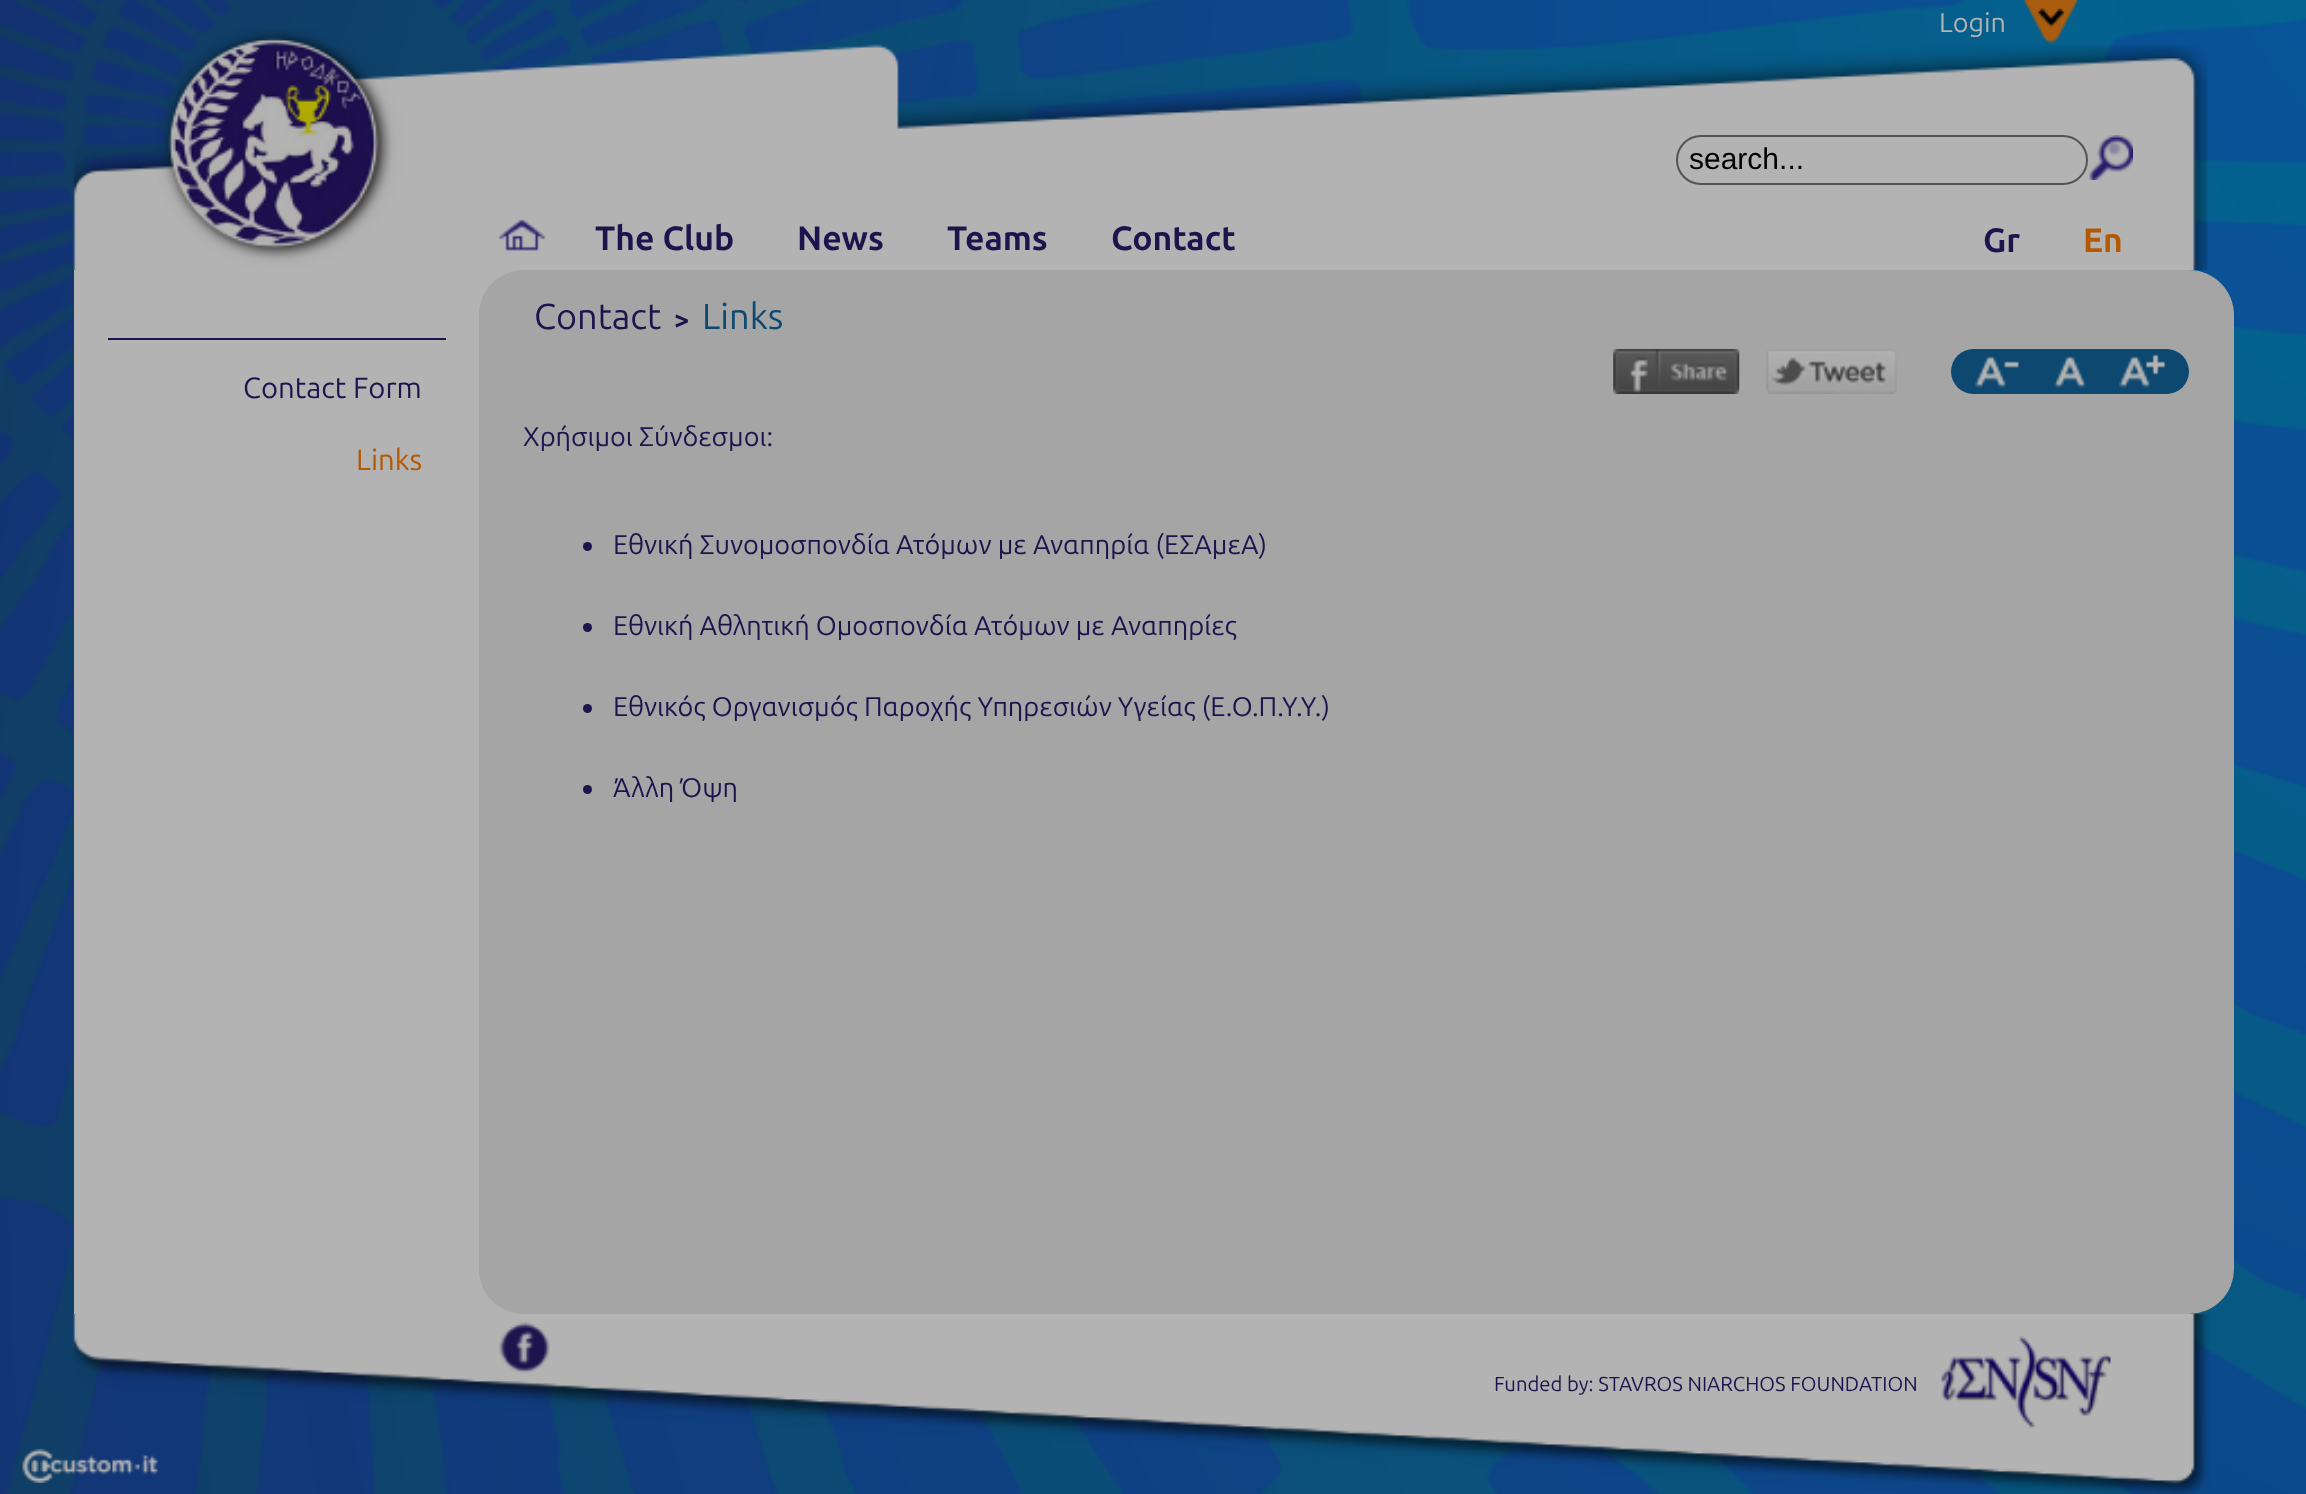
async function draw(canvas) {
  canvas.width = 2306;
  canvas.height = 1494;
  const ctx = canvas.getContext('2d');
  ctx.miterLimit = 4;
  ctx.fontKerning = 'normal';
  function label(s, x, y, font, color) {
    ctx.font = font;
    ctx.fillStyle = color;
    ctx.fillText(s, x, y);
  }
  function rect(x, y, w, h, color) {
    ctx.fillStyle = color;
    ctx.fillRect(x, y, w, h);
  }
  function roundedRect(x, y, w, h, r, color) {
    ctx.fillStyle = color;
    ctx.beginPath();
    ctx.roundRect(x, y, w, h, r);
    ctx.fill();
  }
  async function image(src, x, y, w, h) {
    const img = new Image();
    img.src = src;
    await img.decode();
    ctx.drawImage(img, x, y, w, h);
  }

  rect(0, 0, 2306, 1494, '#fff');
  await image('assets/img1.png', 0, 0, 2306, 1494);
  await image('assets/img2.png', 73, 28, 2135, 242);
  await image('assets/img3.png', 2022, 0, 57, 44);
  label('Login', 1939, 32, '27px Ubuntu', '#b3b3b3');
  ctx.beginPath();
  ctx.roundRect(1677, 136, 410, 48, 24);
  ctx.strokeStyle = '#535353';
  ctx.lineWidth = 2;
  ctx.stroke();
  label('search...', 1689, 169, '30px Liberation Sans', '#000');
  await image('assets/img4.png', 2088, 135, 45, 45);
  await image('assets/img5.png', 498, 219, 48, 32);
  label('The Club', 595, 250, 'bold 33.75px Ubuntu', '#1d134d');
  label('News', 797, 250, 'bold 33.75px Ubuntu', '#1d134d');
  label('Teams', 947, 250, 'bold 33.75px Ubuntu', '#1d134d');
  label('Contact', 1111, 250, 'bold 33.75px Ubuntu', '#1d134d');
  label('Gr', 1983, 252, 'bold 33.75px Ubuntu', '#1d134d');
  label('En', 2083, 252, 'bold 33.75px Ubuntu', '#b35901');
  rect(74, 270, 450, 1044, '#b3b3b3');
  rect(108, 338, 338, 2, '#1d134d');
  label('Contact Form', 243, 398, '29.25px Ubuntu', '#1d134d');
  label('Links', 356, 470, '29.25px Ubuntu', '#b35901');
  roundedRect(479, 270, 1755, 1044, 45, '#a5a5a5');
  label('Contact', 534, 329, '36px Ubuntu', '#1d134d');
  label('>', 674, 329, 'bold 27px Ubuntu', '#1d134d');
  label('Links', 702, 329, '36px Ubuntu', '#0d4871');
  await image('assets/img6.png', 1613, 349, 127, 45);
  await image('assets/img7.png', 1766, 349, 131, 45);
  roundedRect(1951, 349, 238, 45, 22.5, '#0d4871');
  await image('assets/img8.png', 1975, 356, 44, 32);
  await image('assets/img9.png', 2054, 356, 33, 32);
  await image('assets/img10.png', 2119, 354, 47, 34);
  label('Χρήσιμοι Σύνδεσμοι:', 523, 446, '27px Ubuntu', '#1d134d');
  ctx.beginPath();
  ctx.arc(587.5, 546.5, 4.5, 0, 2 * Math.PI);
  ctx.fill();
  label('Εθνική Συνομοσπονδία Ατόμων με Αναπηρία (ΕΣΑμεΑ)', 613, 554, '27px Ubuntu', '#1d134d');
  ctx.beginPath();
  ctx.arc(587.5, 627.5, 4.5, 0, 2 * Math.PI);
  ctx.fill();
  label('Εθνική Αθλητική Ομοσπονδία Ατόμων με Αναπηρίες', 613, 635, '27px Ubuntu', '#1d134d');
  ctx.beginPath();
  ctx.arc(587.5, 708.5, 4.5, 0, 2 * Math.PI);
  ctx.fill();
  label('Εθνικός Οργανισμός Παροχής Υπηρεσιών Υγείας (Ε.Ο.Π.Υ.Υ.)', 613, 716, '27px Ubuntu', '#1d134d');
  ctx.beginPath();
  ctx.arc(587.5, 789.5, 4.5, 0, 2 * Math.PI);
  ctx.fill();
  label('Άλλη Όψη', 613, 797, '27px Ubuntu', '#1d134d');
  await image('assets/img11.png', 73, 1314, 2137, 180);
  await image('assets/img12.png', 499, 1321, 51, 52);
  label('Funded by: STAVROS NIARCHOS FOUNDATION', 1494, 1391, '20.25px Ubuntu', '#1d134d');
  await image('assets/img13.png', 1941, 1336, 170, 93);
  await image('assets/img14.png', 22, 1449, 136, 34);
}

draw(document.querySelector('canvas'));
